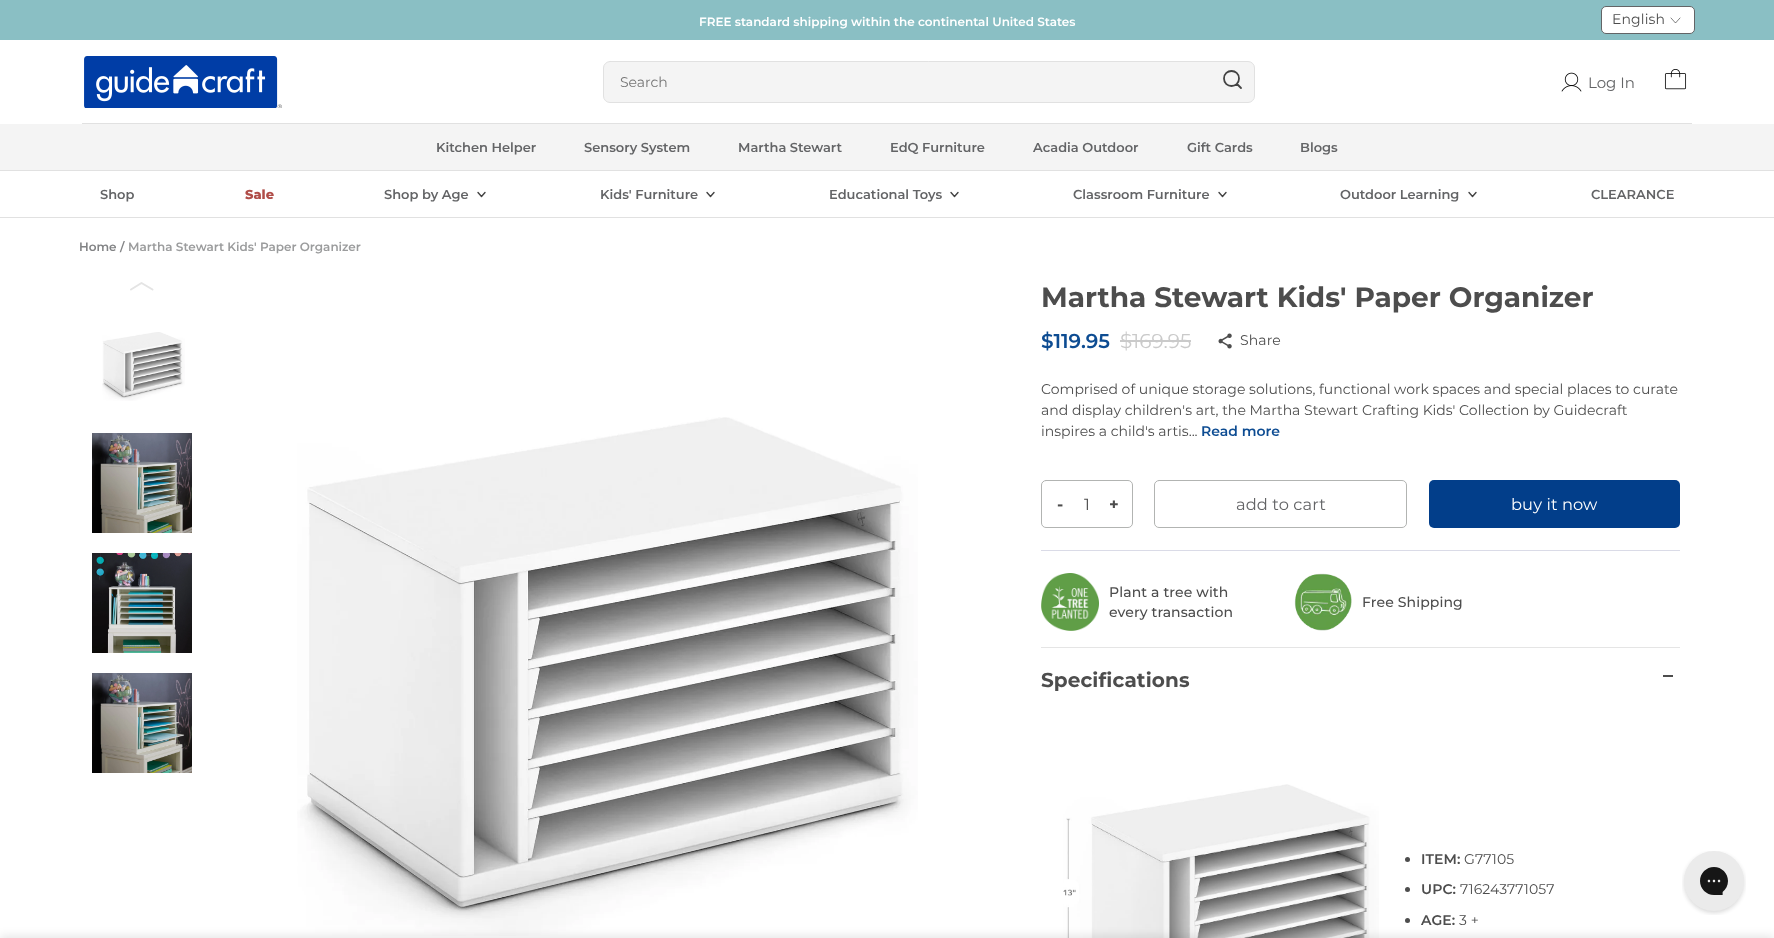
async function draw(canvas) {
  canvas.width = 1774;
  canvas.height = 938;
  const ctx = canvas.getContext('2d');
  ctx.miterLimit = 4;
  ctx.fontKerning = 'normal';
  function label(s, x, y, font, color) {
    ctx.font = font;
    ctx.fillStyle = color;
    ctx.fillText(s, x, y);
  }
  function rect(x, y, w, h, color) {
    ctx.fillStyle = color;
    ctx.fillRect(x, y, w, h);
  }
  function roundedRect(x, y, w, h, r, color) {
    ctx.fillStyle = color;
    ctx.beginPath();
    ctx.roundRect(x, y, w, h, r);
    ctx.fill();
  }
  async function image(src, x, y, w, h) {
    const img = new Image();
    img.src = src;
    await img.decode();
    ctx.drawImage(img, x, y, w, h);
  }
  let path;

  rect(0, 0, 1774, 938, '#fff');
  rect(0, 0, 1774, 40, '#8abfc4');
  label('FREE standard shipping within the continental United States', 699, 26, '600 12px Montserrat', '#fff');
  ctx.beginPath();
  ctx.roundRect(1601.5, 6.5, 93, 27, 4.5);
  ctx.fill();
  ctx.strokeStyle = '#636466';
  ctx.stroke();
  ctx.letterSpacing = '0.1px';
  label('English', 1612, 24, '14px Montserrat', '#4d4d4d');
  path = new Path2D('M1680 18L1675.5 23L1671 18');
  ctx.strokeStyle = '#000';
  ctx.lineWidth = 0.5;
  ctx.lineCap = 'round';
  ctx.lineJoin = 'round';
  ctx.stroke(path);
  await image('assets/img1.png', 84, 56, 198, 52);
  ctx.fillStyle = '#f4f4f4';
  ctx.beginPath();
  ctx.roundRect(603.5, 61.5, 651, 41, 6.5);
  ctx.fill();
  ctx.strokeStyle = '#e1e1e1';
  ctx.lineWidth = 1;
  ctx.lineJoin = 'miter';
  ctx.stroke();
  ctx.letterSpacing = '0px';
  label('Search', 620, 87, '14px Montserrat', '#757575');
  path = new Path2D('M1241 88L1237 84M1239 78.5C1239 88.5 1224 88.5 1224 78.5C1224 68.5 1239 68.5 1239 78.5Z');
  ctx.strokeStyle = '#434343';
  ctx.lineWidth = 1.8;
  ctx.lineJoin = 'round';
  ctx.stroke(path);
  await image('assets/img2.png', 1561, 72, 21, 20);
  label('Log In', 1588, 88, '15px Montserrat', '#636466');
  await image('assets/img3.png', 1664, 69, 23, 21);
  rect(82, 123, 1610, 1, '#e1e1e1');
  rect(0, 124, 1774, 46, '#f4f4f4');
  rect(0, 170, 1774, 1, '#e1e1e1');
  label('Kitchen Helper', 436, 152, '600 13px Montserrat', '#636466');
  label('Sensory System', 584, 152, '600 13px Montserrat', '#636466');
  label('Martha Stewart', 738, 152, '600 13px Montserrat', '#636466');
  label('EdQ Furniture', 890, 152, '600 13px Montserrat', '#636466');
  label('Acadia Outdoor', 1033, 152, '600 13px Montserrat', '#636466');
  label('Gift Cards', 1187, 152, '600 13px Montserrat', '#636466');
  label('Blogs', 1300, 152, '600 13px Montserrat', '#636466');
  rect(0, 217, 1774, 1, '#e1e1e1');
  label('Shop', 100, 199, '600 13px Montserrat', '#636466');
  label('Sale', 245, 199, '800 13px Montserrat', '#b04d48');
  label('Shop by Age', 384, 199, '600 13px Montserrat', '#636466');
  path = new Path2D('M478 192.5L481.5 196.5L485 192.5');
  ctx.lineWidth = 1.4;
  ctx.stroke(path);
  label('Kids\' Furniture', 600, 199, '600 13px Montserrat', '#636466');
  path = new Path2D('M707 192.5L710.5 196.5L714 192.5');
  ctx.stroke(path);
  label('Educational Toys', 829, 199, '600 13px Montserrat', '#636466');
  path = new Path2D('M951 192.5L954.5 196.5L958 192.5');
  ctx.stroke(path);
  label('Classroom Furniture', 1073, 199, '600 13px Montserrat', '#636466');
  path = new Path2D('M1219 192.5L1222.5 196.5L1226 192.5');
  ctx.stroke(path);
  label('Outdoor Learning', 1340, 199, '600 13px Montserrat', '#636466');
  path = new Path2D('M1469 192.5L1472.5 196.5L1476 192.5');
  ctx.stroke(path);
  label('CLEARANCE', 1591, 199, '600 13px Montserrat', '#636466');
  label('Home /', 79, 251, '600 12px Montserrat', '#828385');
  label('Martha Stewart Kids\' Paper Organizer', 128, 251, '600 12px Montserrat', '#9b9c9d');
  path = new Path2D('M131 289.5L141.5 283L152.5 289.5');
  ctx.strokeStyle = '#e4e4e4';
  ctx.lineWidth = 2;
  ctx.stroke(path);
  await image('assets/img4.png', 102, 332, 83, 69);
  await image('assets/img5.png', 92, 433, 100, 100);
  await image('assets/img6.png', 92, 553, 100, 100);
  await image('assets/img7.png', 92, 673, 100, 100);
  await image('assets/img8.png', 297, 417, 621, 519);
  label('Martha Stewart Kids\' Paper Organizer', 1041, 307, 'bold 28px Montserrat', '#4d4d4d');
  label('$119.95', 1041, 348, '600 20px Montserrat', '#0d4c92');
  label('$169.95', 1120, 348, '20px Montserrat', '#cacaca');
  rect(1120, 340, 71, 2, '#cacaca');
  await image('assets/img9.png', 1218, 333, 14, 16);
  ctx.letterSpacing = '0.1px';
  label('Share', 1240, 345, '14px Montserrat', '#4d4d4d');
  ctx.letterSpacing = '0px';
  label('Comprised of unique storage solutions, functional work spaces and special places to curate', 1041, 394, '14px Montserrat', '#4d4d4d');
  label('and display children\'s art, the Martha Stewart Crafting Kids\' Collection by Guidecraft', 1041, 415, '14px Montserrat', '#4d4d4d');
  label('inspires a child\'s artis...', 1041, 436, '14px Montserrat', '#4d4d4d');
  label('Read more', 1201, 436, '600 14px Montserrat', '#0d4c92');
  rect(1041, 550, 639, 1, '#dadbe7');
  ctx.beginPath();
  ctx.roundRect(1041.5, 480.5, 91, 47, 4.5);
  ctx.strokeStyle = '#b2b4b2';
  ctx.lineWidth = 1;
  ctx.lineJoin = 'miter';
  ctx.stroke();
  ctx.letterSpacing = '0.1px';
  label('-', 1057, 510, 'bold 16.25px Montserrat', '#4d4d4d');
  ctx.letterSpacing = '0px';
  label('1', 1084, 510, '16px Montserrat', '#4d4d4d');
  ctx.letterSpacing = '0.1px';
  label('+', 1109, 510, 'bold 16.25px Montserrat', '#4d4d4d');
  ctx.beginPath();
  ctx.roundRect(1154.5, 480.5, 252, 47, 4.5);
  ctx.stroke();
  label('add to cart', 1236, 510, '16.25px Montserrat', '#636466');
  roundedRect(1429, 480, 251, 48, 5, '#023e8a');
  label('buy it now', 1511, 510, '16.25px Montserrat', '#fff');
  await image('assets/img10.png', 1041, 573, 58, 58);
  label('Plant a tree with', 1109, 597, '500 14px Montserrat', '#4d4d4d');
  label('every transaction', 1109, 617, '500 14px Montserrat', '#4d4d4d');
  await image('assets/img11.png', 1294, 573, 58, 58);
  label('Free Shipping', 1362, 607, '500 14px Montserrat', '#4d4d4d');
  rect(1041, 647, 639, 1, '#e5e5e5');
  label('Specifications', 1041, 687, 'bold 20px Montserrat', '#4d4d4d');
  rect(1663, 675, 10, 2, '#4d4d4d');
  await image('assets/img12.png', 1063, 784, 316, 154);
  ctx.beginPath();
  ctx.arc(1407.5, 859.5, 2.5, 0, 2 * Math.PI);
  ctx.fill();
  label('ITEM:', 1421, 864, '600 14px Montserrat', '#4d4d4d');
  label('G77105', 1464, 864, '14px Montserrat', '#4d4d4d');
  ctx.beginPath();
  ctx.arc(1407.5, 889.5, 2.5, 0, 2 * Math.PI);
  ctx.fill();
  label('UPC:', 1421, 894, '600 14px Montserrat', '#4d4d4d');
  label('716243771057', 1460, 894, '14px Montserrat', '#4d4d4d');
  ctx.beginPath();
  ctx.arc(1407.5, 920.5, 2.5, 0, 2 * Math.PI);
  ctx.fill();
  label('AGE:', 1421, 925, '600 14px Montserrat', '#4d4d4d');
  label('3 +', 1459, 925, '14px Montserrat', '#4d4d4d');
  ctx.fillStyle = '#0000001a';
  ctx.filter = 'blur(5px)';
  ctx.beginPath();
  ctx.rect(0, 936, 1774, 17);
  ctx.fill();
  ctx.filter = 'none';
  await image('assets/img13.png', 1682, 851, 64, 64);
}

draw(document.querySelector('canvas'));
